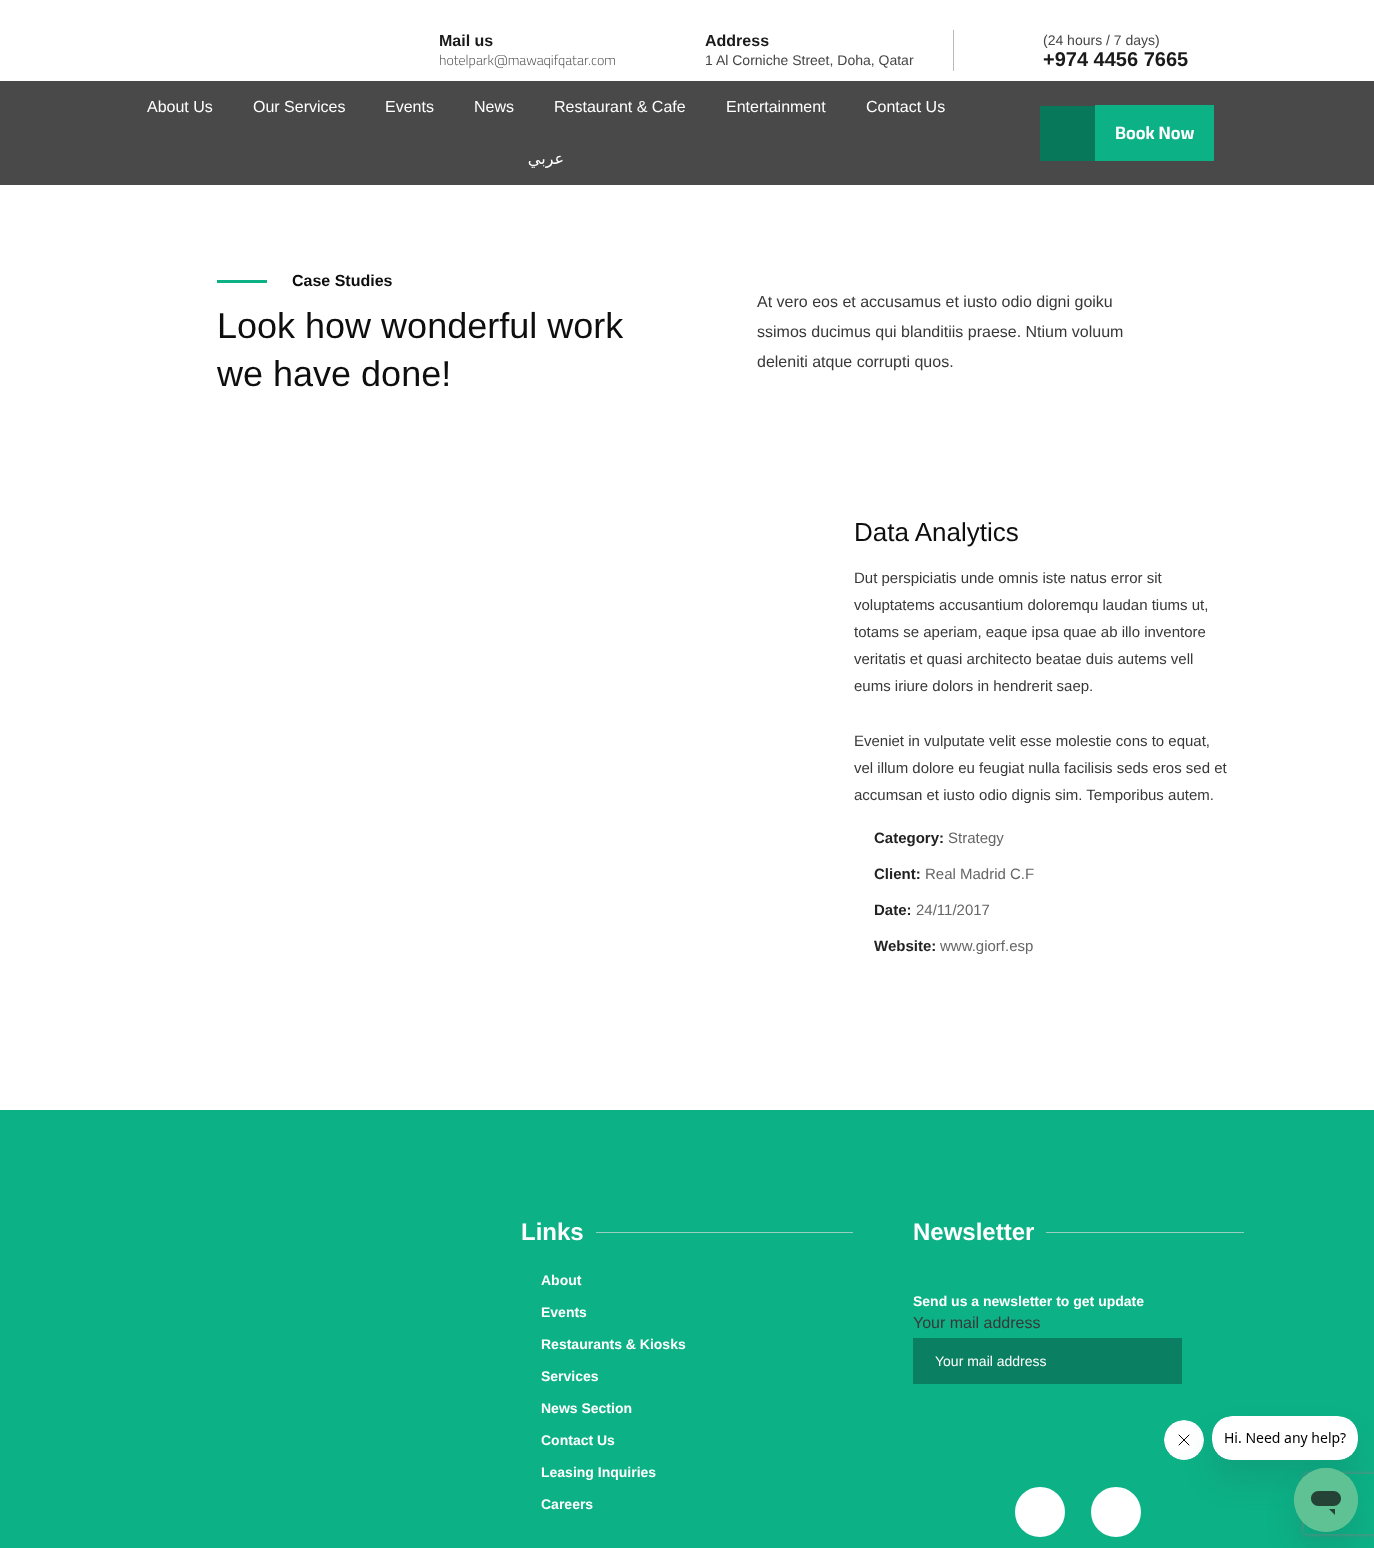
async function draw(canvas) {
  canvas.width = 1374;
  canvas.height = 1548;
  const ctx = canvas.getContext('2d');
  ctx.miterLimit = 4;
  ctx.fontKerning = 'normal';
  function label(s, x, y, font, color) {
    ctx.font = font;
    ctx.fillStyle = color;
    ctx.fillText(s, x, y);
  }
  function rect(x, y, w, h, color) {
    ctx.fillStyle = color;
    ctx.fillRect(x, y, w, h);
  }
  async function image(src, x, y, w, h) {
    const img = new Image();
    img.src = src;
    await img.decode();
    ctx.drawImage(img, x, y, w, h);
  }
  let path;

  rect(0, 0, 1374, 1548, '#fff');
  label('Mail us', 439, 46, 'bold 16px Liberation Sans', '#1a1a1a');
  label('hotelpark@mawaqifqatar.com', 439, 65, '300 14px Cairo', '#454545');
  rect(953, 30, 1, 41, '#bababa');
  label('Address', 705, 46, 'bold 16px Liberation Sans', '#1a1a1a');
  label('1 Al Corniche Street, Doha, Qatar', 705, 65, '14px Liberation Sans', '#454545');
  label('(24 hours / 7 days)', 1043, 45, '14px Liberation Sans', '#454545');
  label('+974 4456 7665', 1043, 66, 'bold 20px Liberation Sans', '#1a1a1a');
  rect(0, 81, 1374, 104, '#494949');
  label('About Us', 147, 112, '16px Liberation Sans', '#fff');
  label('Our Services', 253, 112, '16px Liberation Sans', '#fff');
  label('Events', 385, 112, '16px Liberation Sans', '#fff');
  label('News', 474, 112, '16px Liberation Sans', '#fff');
  label('Restaurant & Cafe', 554, 112, '16px Liberation Sans', '#fff');
  label('Entertainment', 726, 112, '16px Liberation Sans', '#fff');
  label('Contact Us', 866, 112, '16px Liberation Sans', '#fff');
  ctx.direction = 'rtl';
  label('عربي', 564, 164, '16px DejaVu Sans', '#fff');
  rect(1040, 106, 55, 55, '#08785b');
  rect(1095, 105, 119, 56, '#0db186');
  ctx.direction = 'ltr';
  label('Book Now', 1115, 139, 'bold 18px Cairo', '#fff');
  rect(217, 280, 50, 3, '#0cb186');
  label('Case Studies', 292, 286, 'bold 16px Liberation Sans', '#0e0e0e');
  label('Look how wonderful work', 217, 338, '36px Liberation Sans', '#0e0e0e');
  label('we have done!', 217, 386, '36px Liberation Sans', '#0e0e0e');
  label('At vero eos et accusamus et iusto odio digni goiku', 757, 307, '16px Liberation Sans', '#383838');
  label('ssimos ducimus qui blanditiis praese. Ntium voluum', 757, 337, '16px Liberation Sans', '#383838');
  label('deleniti atque corrupti quos.', 757, 367, '16px Liberation Sans', '#383838');
  label('Data Analytics', 854, 541, '26px Liberation Sans', '#0e0e0e');
  label('Dut perspiciatis unde omnis iste natus error sit', 854, 583, '15px Liberation Sans', '#383838');
  label('voluptatems accusantium doloremqu laudan tiums ut,', 854, 610, '15px Liberation Sans', '#383838');
  label('totams se aperiam, eaque ipsa quae ab illo inventore', 854, 637, '15px Liberation Sans', '#383838');
  label('veritatis et quasi architecto beatae duis autems vell', 854, 664, '15px Liberation Sans', '#383838');
  label('eums iriure dolors in hendrerit saep.', 854, 691, '15px Liberation Sans', '#383838');
  label('Eveniet in vulputate velit esse molestie cons to equat,', 854, 746, '15px Liberation Sans', '#383838');
  label('vel illum dolore eu feugiat nulla facilisis seds eros sed et', 854, 773, '15px Liberation Sans', '#383838');
  label('accumsan et iusto odio dignis sim. Temporibus autem.', 854, 800, '15px Liberation Sans', '#383838');
  label('Category:', 874, 843, 'bold 15px Liberation Sans', '#222');
  label('Strategy', 948, 843, '15px Liberation Sans', '#666');
  label('Client:', 874, 879, 'bold 15px Liberation Sans', '#222');
  label('Real Madrid C.F', 925, 879, '15px Liberation Sans', '#666');
  label('Date:', 874, 915, 'bold 15px Liberation Sans', '#222');
  label('24/11/2017', 916, 915, '15px Liberation Sans', '#666');
  label('Website:', 874, 951, 'bold 15px Liberation Sans', '#222');
  label('www.giorf.esp', 940, 951, '15px Liberation Sans', '#666');
  rect(0, 1110, 1374, 438, '#0db186');
  label('Links', 521, 1240, 'bold 24px Liberation Sans', '#fff');
  rect(596, 1232, 257, 1, '#98cebf');
  label('About', 541, 1285, 'bold 14px Liberation Sans', '#fff');
  label('Events', 541, 1317, 'bold 14px Liberation Sans', '#fff');
  label('Restaurants & Kiosks', 541, 1349, 'bold 14px Liberation Sans', '#fff');
  label('Services', 541, 1381, 'bold 14px Liberation Sans', '#fff');
  label('News Section', 541, 1413, 'bold 14px Liberation Sans', '#fff');
  label('Contact Us', 541, 1445, 'bold 14px Liberation Sans', '#fff');
  label('Leasing Inquiries', 541, 1477, 'bold 14px Liberation Sans', '#fff');
  label('Careers', 541, 1509, 'bold 14px Liberation Sans', '#fff');
  label('Newsletter', 913, 1240, 'bold 24px Liberation Sans', '#fff');
  rect(1046, 1232, 198, 1, '#98cebf');
  label('Send us a newsletter to get update', 913, 1306, 'bold 14px Liberation Sans', '#fff');
  label('Your mail address', 913, 1328, '16px Liberation Sans', '#383838');
  rect(913, 1338, 269, 46, '#0b7f61');
  label('Your mail address', 935, 1366, '14px Liberation Sans', '#fff');
  ctx.beginPath();
  ctx.arc(1040, 1512, 26.5, 0, 2 * Math.PI);
  ctx.fill();
  ctx.strokeStyle = '#0db186';
  ctx.lineWidth = 3;
  ctx.stroke();
  ctx.beginPath();
  ctx.arc(1116, 1512, 26.5, 0, 2 * Math.PI);
  ctx.fill();
  ctx.stroke();
  await image('assets/img2.png', 1164, 1420, 40, 40);
  ctx.fillStyle = '#17494d26';
  ctx.filter = 'blur(15px)';
  ctx.beginPath();
  ctx.roundRect(1212, 1436, 146, 44, 20);
  ctx.fill();
  ctx.filter = 'none';
  await image('assets/img1.png', 1212, 1416, 146, 44);
  ctx.filter = 'blur(15px)';
  ctx.beginPath();
  ctx.roundRect(1294, 1488, 64, 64, 32);
  ctx.fill();
  ctx.filter = 'none';
  ctx.save();
  path = new Path2D('M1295 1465H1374V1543H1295ZM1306 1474H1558C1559 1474 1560 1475 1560 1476V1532C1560 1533 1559 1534 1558 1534H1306C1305 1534 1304 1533 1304 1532V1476C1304 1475 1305 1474 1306 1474Z');
  ctx.clip(path, 'evenodd');
  ctx.fillStyle = '#808080';
  ctx.filter = 'blur(2.5px)';
  ctx.beginPath();
  ctx.roundRect(1304, 1474, 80, 60, 2);
  ctx.fill();
  ctx.filter = 'none';
  ctx.restore();
  await image('assets/img3.png', 1294, 1468, 64, 64);
}

draw(document.querySelector('canvas'));
